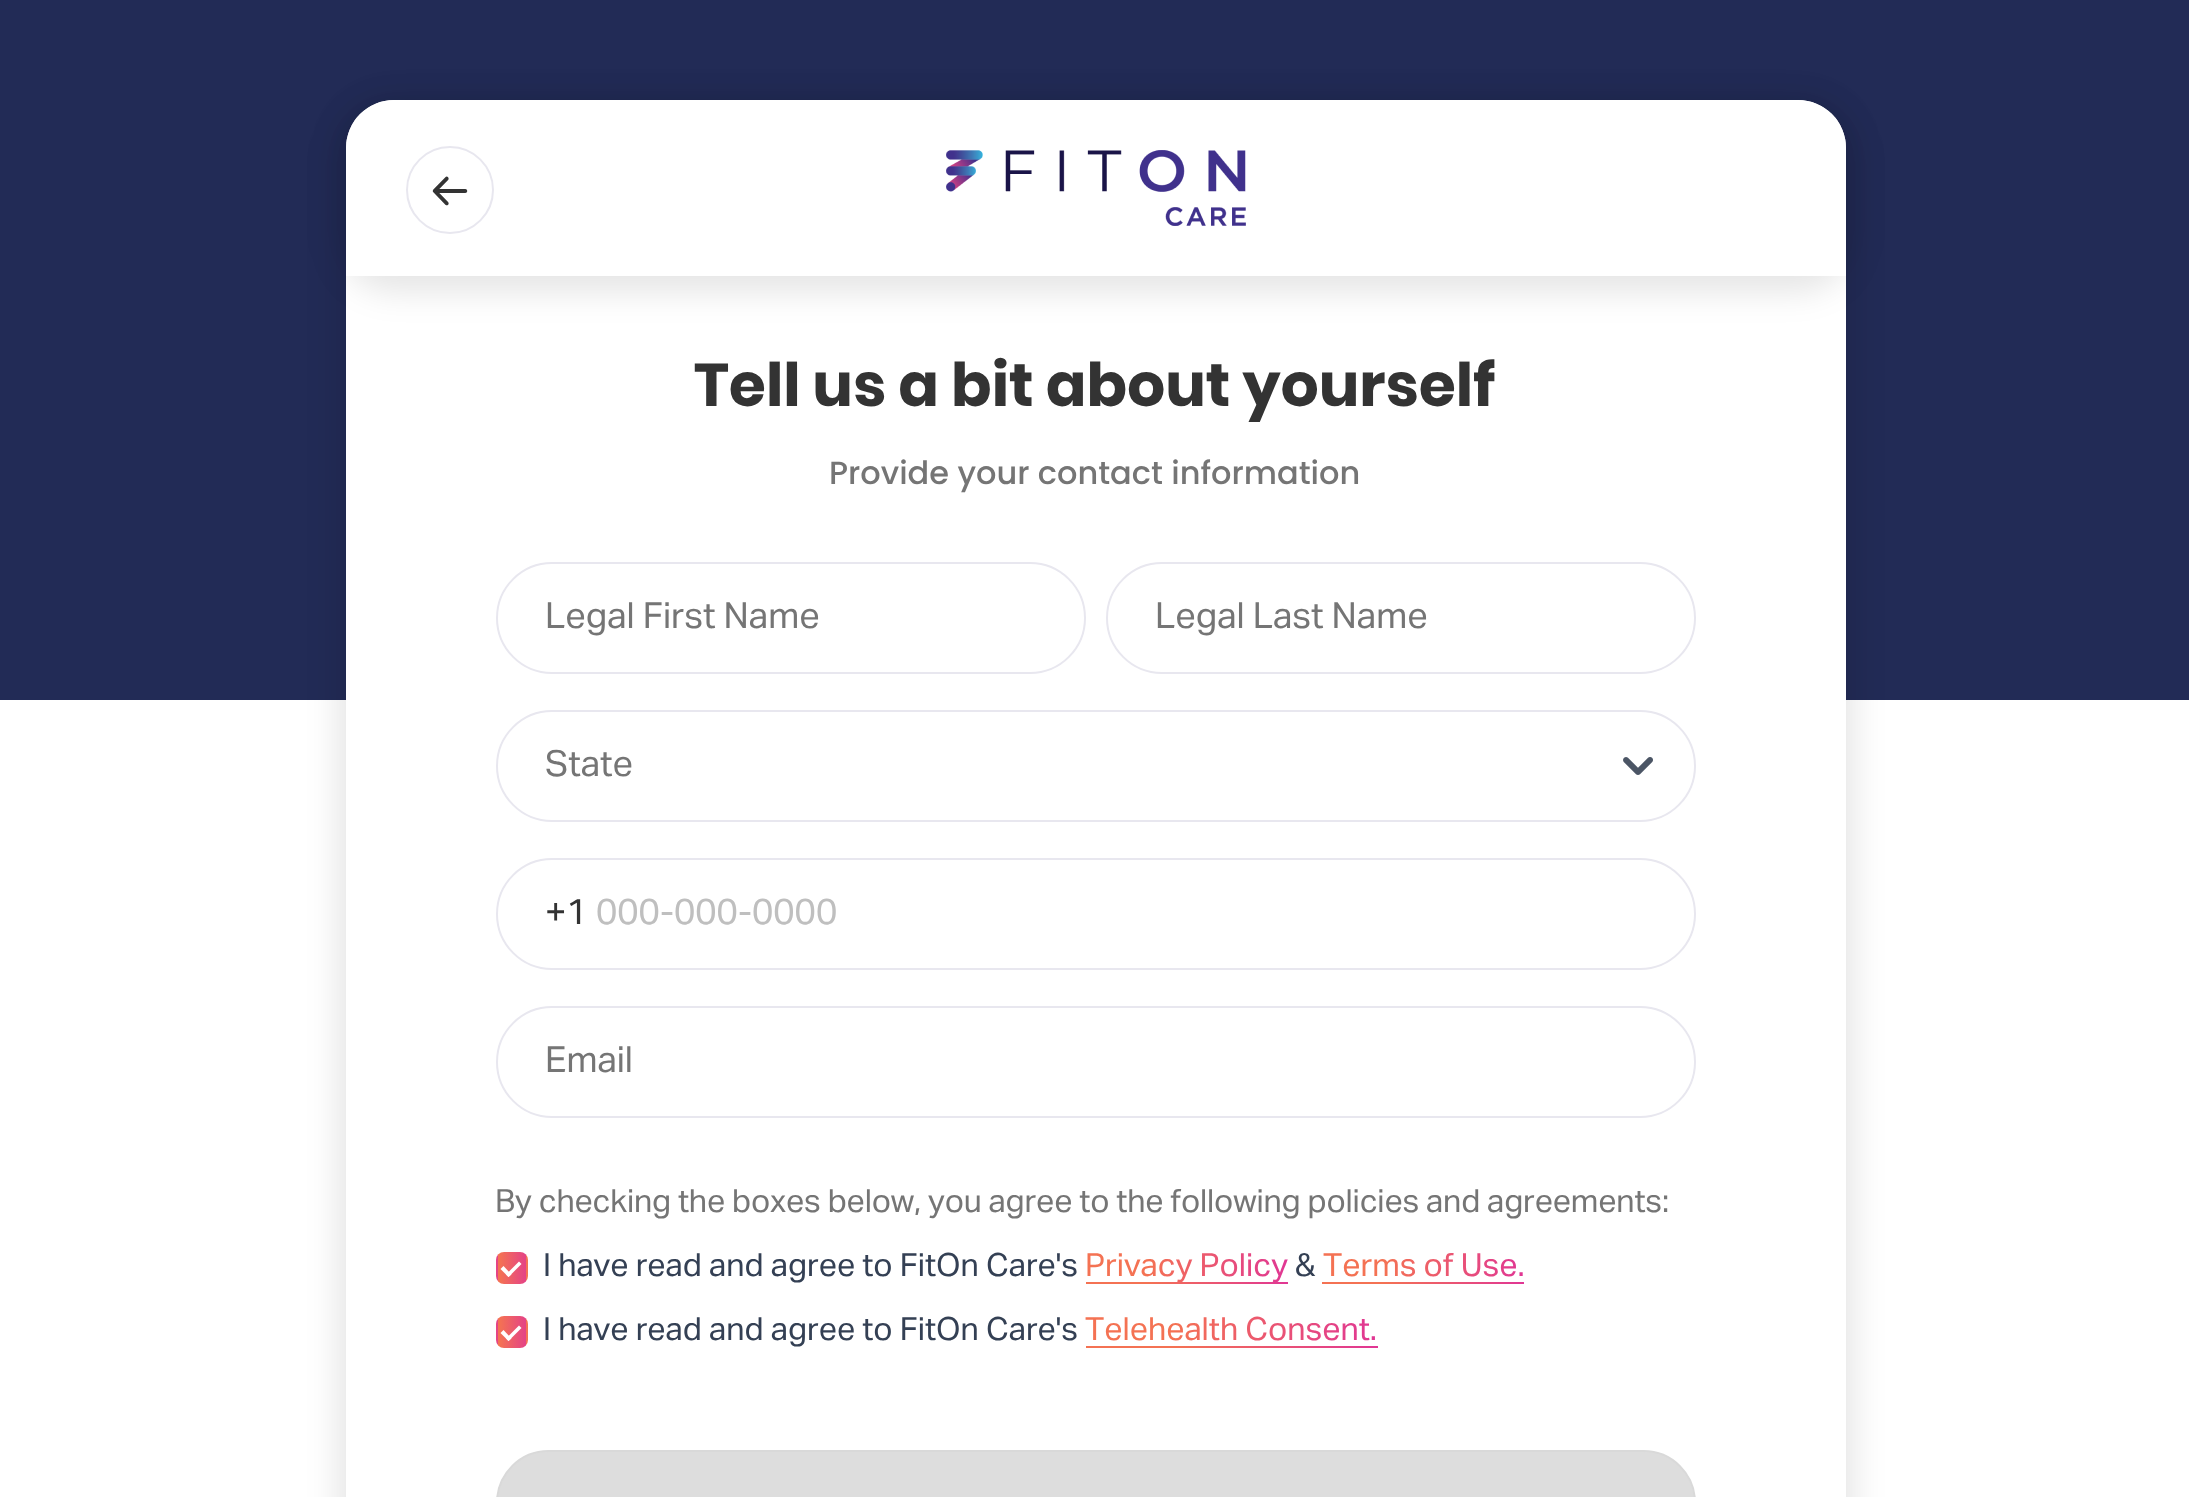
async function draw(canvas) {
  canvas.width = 2189;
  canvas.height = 1497;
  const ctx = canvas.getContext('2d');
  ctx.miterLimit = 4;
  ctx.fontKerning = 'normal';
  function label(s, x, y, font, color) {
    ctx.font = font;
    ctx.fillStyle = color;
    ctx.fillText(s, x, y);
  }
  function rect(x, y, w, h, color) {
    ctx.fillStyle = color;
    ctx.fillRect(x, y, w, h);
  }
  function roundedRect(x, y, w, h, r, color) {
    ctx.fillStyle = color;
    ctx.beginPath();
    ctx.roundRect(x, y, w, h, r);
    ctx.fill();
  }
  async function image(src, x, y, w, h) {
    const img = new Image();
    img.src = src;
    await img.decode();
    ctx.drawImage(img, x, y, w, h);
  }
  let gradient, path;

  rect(0, 0, 2189, 1497, '#fff');
  rect(0, 0, 2189, 700, '#222b56');
  ctx.fillStyle = '#0000001a';
  ctx.filter = 'blur(16px)';
  ctx.beginPath();
  ctx.roundRect(338, 104, 1516, 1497, 56);
  ctx.fill();
  ctx.filter = 'none';
  roundedRect(346, 100, 1500, 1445, 48, '#fff');
  ctx.fillStyle = '#0000001a';
  ctx.filter = 'blur(16px)';
  ctx.beginPath();
  ctx.roundRect(338, 100, 1516, 192, 56);
  ctx.fill();
  ctx.filter = 'none';
  ctx.fillStyle = '#fff';
  ctx.beginPath();
  ctx.roundRect(346, 100, 1500, 176, [48, 48, 0, 0]);
  ctx.fill();
  ctx.beginPath();
  ctx.arc(450, 190, 43, 0, 2 * Math.PI);
  ctx.strokeStyle = '#e8e7ef';
  ctx.lineWidth = 2;
  ctx.stroke();
  await image('assets/img1.png', 946, 150, 300, 76);
  await image('assets/img2.png', 432, 176, 36, 30);
  label('Tell us a bit about yourself', 694, 406, 'bold 60px Poppins', '#333');
  label('Provide your contact information', 829, 484, '500 32px Poppins', '#757575');
  ctx.beginPath();
  ctx.roundRect(497, 563, 588, 110, 55);
  ctx.stroke();
  label('Legal First Name', 545, 628, '36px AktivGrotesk', '#757575');
  ctx.beginPath();
  ctx.roundRect(1107, 563, 588, 110, 55);
  ctx.stroke();
  label('Legal Last Name', 1155, 628, '36px AktivGrotesk', '#757575');
  ctx.beginPath();
  ctx.roundRect(497, 711, 1198, 110, 55);
  ctx.stroke();
  label('State', 545, 776, '36px AktivGrotesk', '#757575');
  await image('assets/img3.png', 1623, 757, 30, 18);
  ctx.beginPath();
  ctx.roundRect(497, 859, 1198, 110, 55);
  ctx.stroke();
  label('+1', 545, 924, '36px AktivGrotesk', '#333');
  label('000-000-0000', 596, 924, '36px AktivGrotesk', '#bfbfbf');
  ctx.beginPath();
  ctx.roundRect(497, 1007, 1198, 110, 55);
  ctx.stroke();
  label('Email', 545, 1072, '36px AktivGrotesk', '#757575');
  ctx.letterSpacing = '-0.15px';
  label('By checking the boxes below, you agree to the following policies and agreements:', 495, 1212, '32px AktivGrotesk', '#757575');
  ctx.save();
  ctx.beginPath();
  ctx.roundRect(496, 1252, 32, 32, 8);
  ctx.clip();
  gradient = ctx.createLinearGradient(505, 1268, 470, 1268);
  gradient.addColorStop(0, '#e03694');
  gradient.addColorStop(0.96, '#f47253');
  ctx.fillStyle = gradient;
  ctx.fillRect(496, 1252, 2, 32);
  gradient = ctx.createLinearGradient(533, 1268, 498, 1268);
  gradient.addColorStop(0, '#e03694');
  gradient.addColorStop(0.96, '#f47253');
  ctx.fillStyle = gradient;
  ctx.fillRect(498, 1252, 28, 32);
  gradient = ctx.createLinearGradient(561, 1268, 526, 1268);
  gradient.addColorStop(0, '#e03694');
  gradient.addColorStop(0.96, '#f47253');
  ctx.fillStyle = gradient;
  ctx.fillRect(526, 1252, 2, 32);
  ctx.restore();
  ctx.fillStyle = '#fff';
  path = new Path2D('M519 1261.5L521.5 1264L508.5 1277L506 1274.5Z');
  ctx.fill(path);
  path = new Path2D('M503.5 1266L511.5 1274.5L508.5 1277L500.5 1269Z');
  ctx.fill(path);
  ctx.letterSpacing = '0px';
  label('I have read and agree to FitOn Care\'s', 543, 1276, '32px AktivGrotesk', '#344054');
  gradient = ctx.createLinearGradient(1288, 1268, 1085, 1268);
  gradient.addColorStop(0, '#e03694');
  gradient.addColorStop(0.7, '#f47253');
  ctx.fillStyle = gradient;
  ctx.fillText('Privacy Policy', 1085, 1276);
  gradient = ctx.createLinearGradient(1288, 1283, 1086, 1283);
  gradient.addColorStop(0, '#e03694');
  gradient.addColorStop(0.7, '#f47253');
  ctx.fillStyle = gradient;
  ctx.fillRect(1086, 1282, 202, 2);
  label('&', 1295, 1276, '32px AktivGrotesk', '#344054');
  gradient = ctx.createLinearGradient(1524, 1268, 1323, 1268);
  gradient.addColorStop(0, '#e03694');
  gradient.addColorStop(0.7, '#f47253');
  ctx.fillStyle = gradient;
  ctx.fillText('Terms of Use.', 1323, 1276);
  gradient = ctx.createLinearGradient(1524, 1283, 1322, 1283);
  gradient.addColorStop(0, '#e03694');
  gradient.addColorStop(0.7, '#f47253');
  ctx.fillStyle = gradient;
  ctx.fillRect(1322, 1282, 202, 2);
  ctx.save();
  ctx.beginPath();
  ctx.roundRect(496, 1316, 32, 32, 8);
  ctx.clip();
  gradient = ctx.createLinearGradient(505, 1332, 470, 1332);
  gradient.addColorStop(0, '#e03694');
  gradient.addColorStop(0.96, '#f47253');
  ctx.fillStyle = gradient;
  ctx.fillRect(496, 1316, 2, 32);
  gradient = ctx.createLinearGradient(533, 1332, 498, 1332);
  gradient.addColorStop(0, '#e03694');
  gradient.addColorStop(0.96, '#f47253');
  ctx.fillStyle = gradient;
  ctx.fillRect(498, 1316, 28, 32);
  gradient = ctx.createLinearGradient(561, 1332, 526, 1332);
  gradient.addColorStop(0, '#e03694');
  gradient.addColorStop(0.96, '#f47253');
  ctx.fillStyle = gradient;
  ctx.fillRect(526, 1316, 2, 32);
  ctx.restore();
  ctx.fillStyle = '#fff';
  path = new Path2D('M519 1325.5L521.5 1328L508.5 1341L506 1338.5Z');
  ctx.fill(path);
  path = new Path2D('M503.5 1330L511.5 1338.5L508.5 1341L500.5 1333Z');
  ctx.fill(path);
  label('I have read and agree to FitOn Care\'s', 543, 1340, '32px AktivGrotesk', '#344054');
  gradient = ctx.createLinearGradient(1377, 1332, 1085, 1332);
  gradient.addColorStop(0, '#e03694');
  gradient.addColorStop(0.7, '#f47253');
  ctx.fillStyle = gradient;
  ctx.fillText('Telehealth Consent.', 1085, 1340);
  gradient = ctx.createLinearGradient(1378, 1347, 1086, 1347);
  gradient.addColorStop(0, '#e03694');
  gradient.addColorStop(0.7, '#f47253');
  ctx.fillStyle = gradient;
  ctx.fillRect(1086, 1346, 292, 2);
  ctx.fillStyle = '#ddd';
  ctx.beginPath();
  ctx.roundRect(497, 1451, 1198, 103, 55);
  ctx.fill();
  ctx.strokeStyle = '#d9d9d9';
  ctx.stroke();
}

draw(document.querySelector('canvas'));
